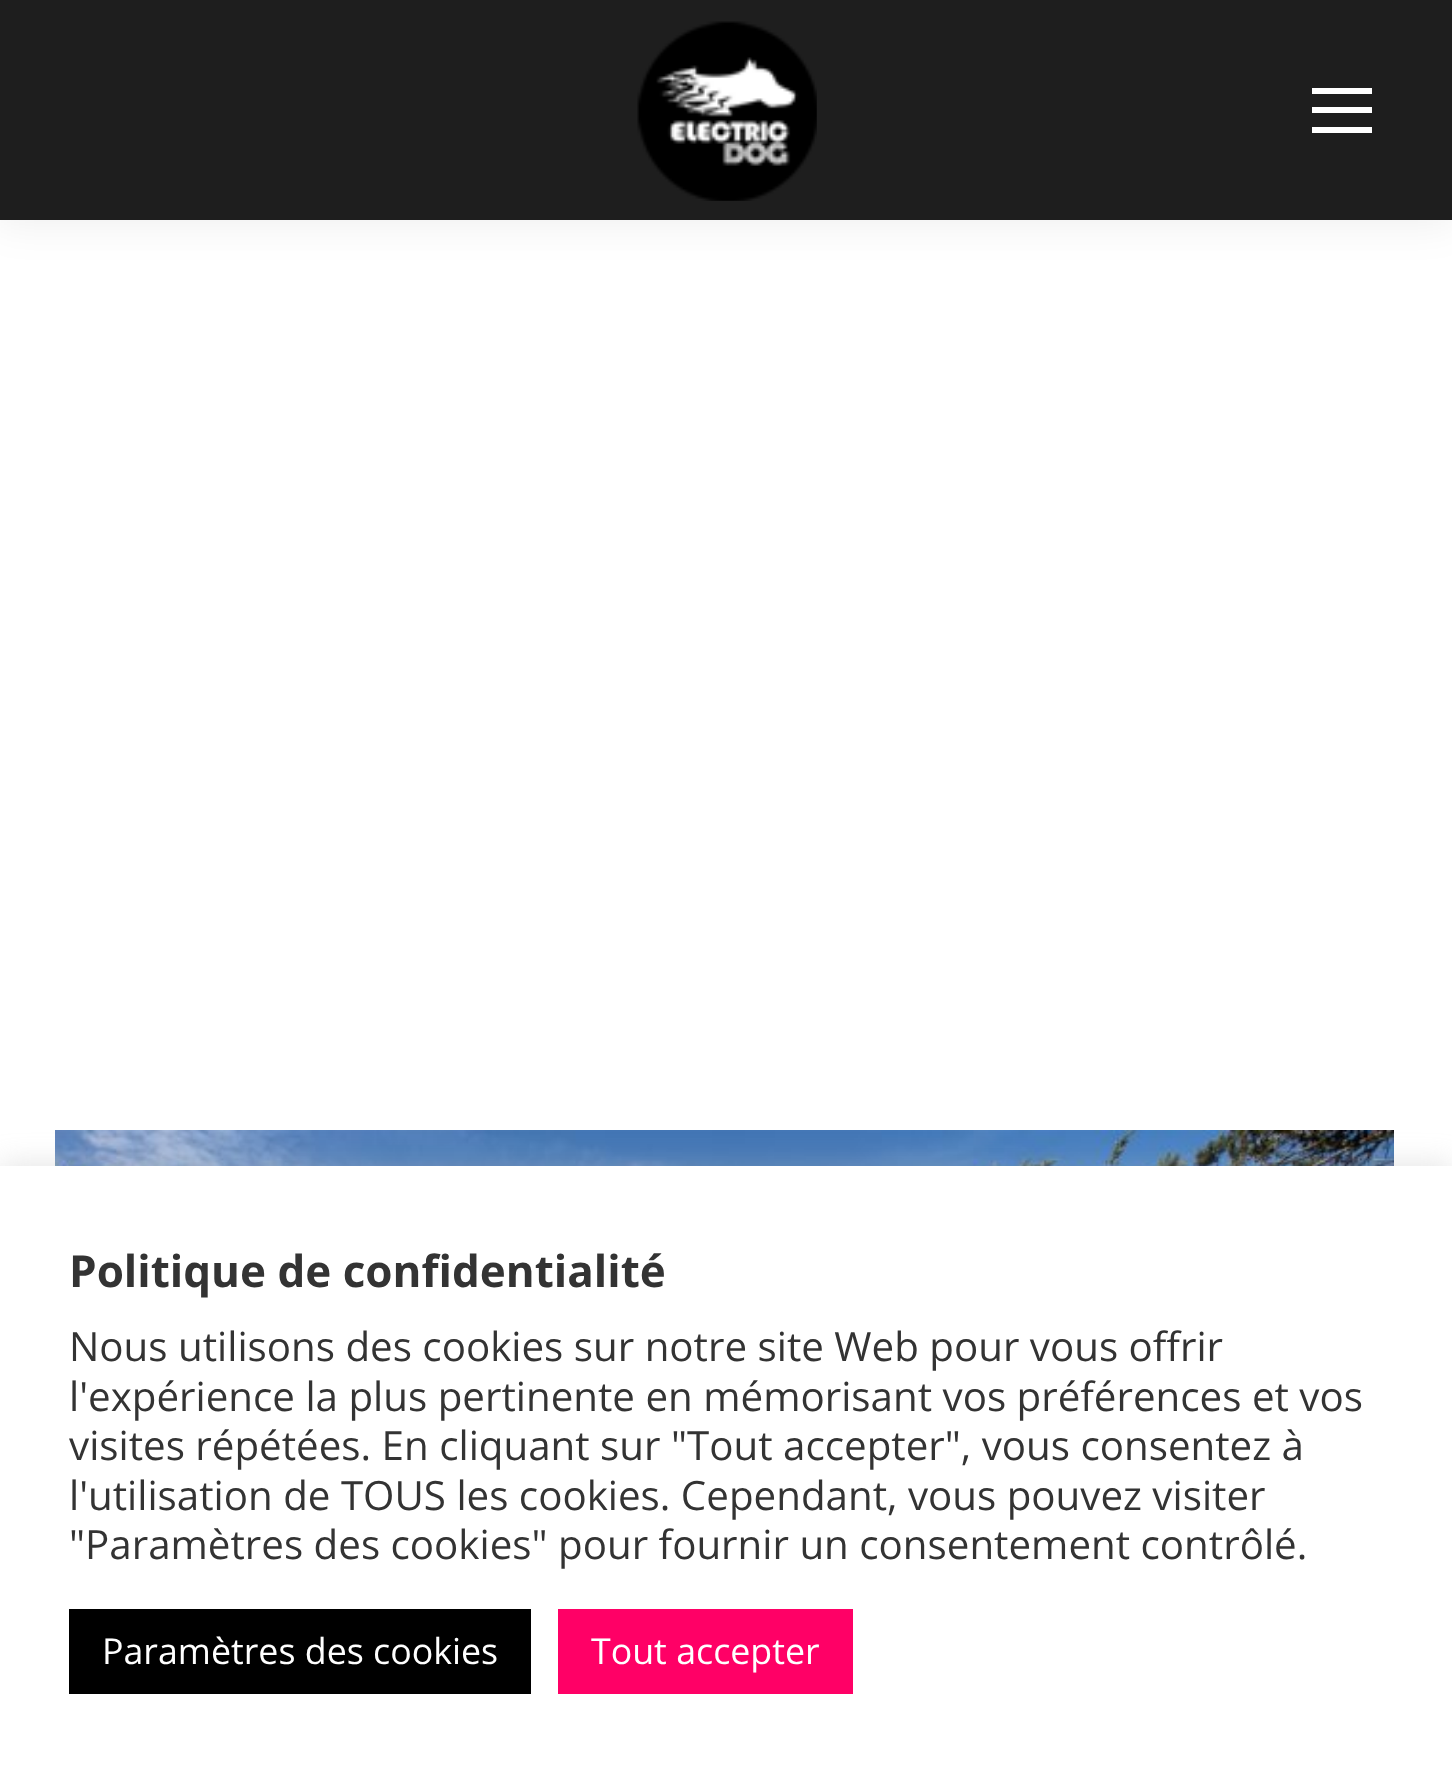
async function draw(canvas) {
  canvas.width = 1452;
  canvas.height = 1774;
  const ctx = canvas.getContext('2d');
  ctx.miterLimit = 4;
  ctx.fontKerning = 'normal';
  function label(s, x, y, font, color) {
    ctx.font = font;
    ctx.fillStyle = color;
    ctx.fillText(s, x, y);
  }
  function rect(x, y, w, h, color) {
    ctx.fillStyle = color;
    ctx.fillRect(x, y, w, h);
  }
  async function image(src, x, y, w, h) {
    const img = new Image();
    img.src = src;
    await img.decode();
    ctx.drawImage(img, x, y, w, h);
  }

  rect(0, 0, 1452, 1774, '#fff');
  ctx.fillStyle = '#00000012';
  ctx.filter = 'blur(20.5px)';
  ctx.beginPath();
  ctx.rect(-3, -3, 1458, 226);
  ctx.fill();
  ctx.filter = 'none';
  rect(0, 0, 1452, 220, '#1e1e1e');
  await image('assets/img1.png', 637, 21, 180, 180);
  rect(1312, 88, 60, 6, '#fff');
  rect(1312, 107, 60, 6, '#fff');
  rect(1312, 127, 60, 6, '#fff');
  await image('assets/img2.png', 55, 1130, 1339, 36);
  ctx.fillStyle = '#acabab4d';
  ctx.filter = 'blur(14px)';
  ctx.beginPath();
  ctx.rect(0, 1163, 1452, 611);
  ctx.fill();
  ctx.filter = 'none';
  rect(0, 1166, 1452, 608, '#fff');
  label('Politique de confidentialité', 69, 1287, 'bold 44px Open Sans', '#333');
  label('Nous utilisons des cookies sur notre site Web pour vous offrir', 69, 1361, '40.3px Open Sans', '#333');
  label('l\'expérience la plus pertinente en mémorisant vos préférences et vos', 69, 1411, '40.3px Open Sans', '#333');
  label('visites répétées. En cliquant sur "Tout accepter", vous consentez à', 69, 1460, '40.3px Open Sans', '#333');
  label('l\'utilisation de TOUS les cookies. Cependant, vous pouvez visiter', 69, 1510, '40.3px Open Sans', '#333');
  label('"Paramètres des cookies" pour fournir un consentement contrôlé.', 69, 1559, '40.3px Open Sans', '#333');
  rect(69, 1609, 462, 85, '#000');
  label('Paramètres des cookies', 102, 1664, '35.75px Open Sans', '#fff');
  rect(558, 1609, 295, 85, '#f06');
  label('Tout accepter', 591, 1664, '35.75px Open Sans', '#fff');
}

draw(document.querySelector('canvas'));
